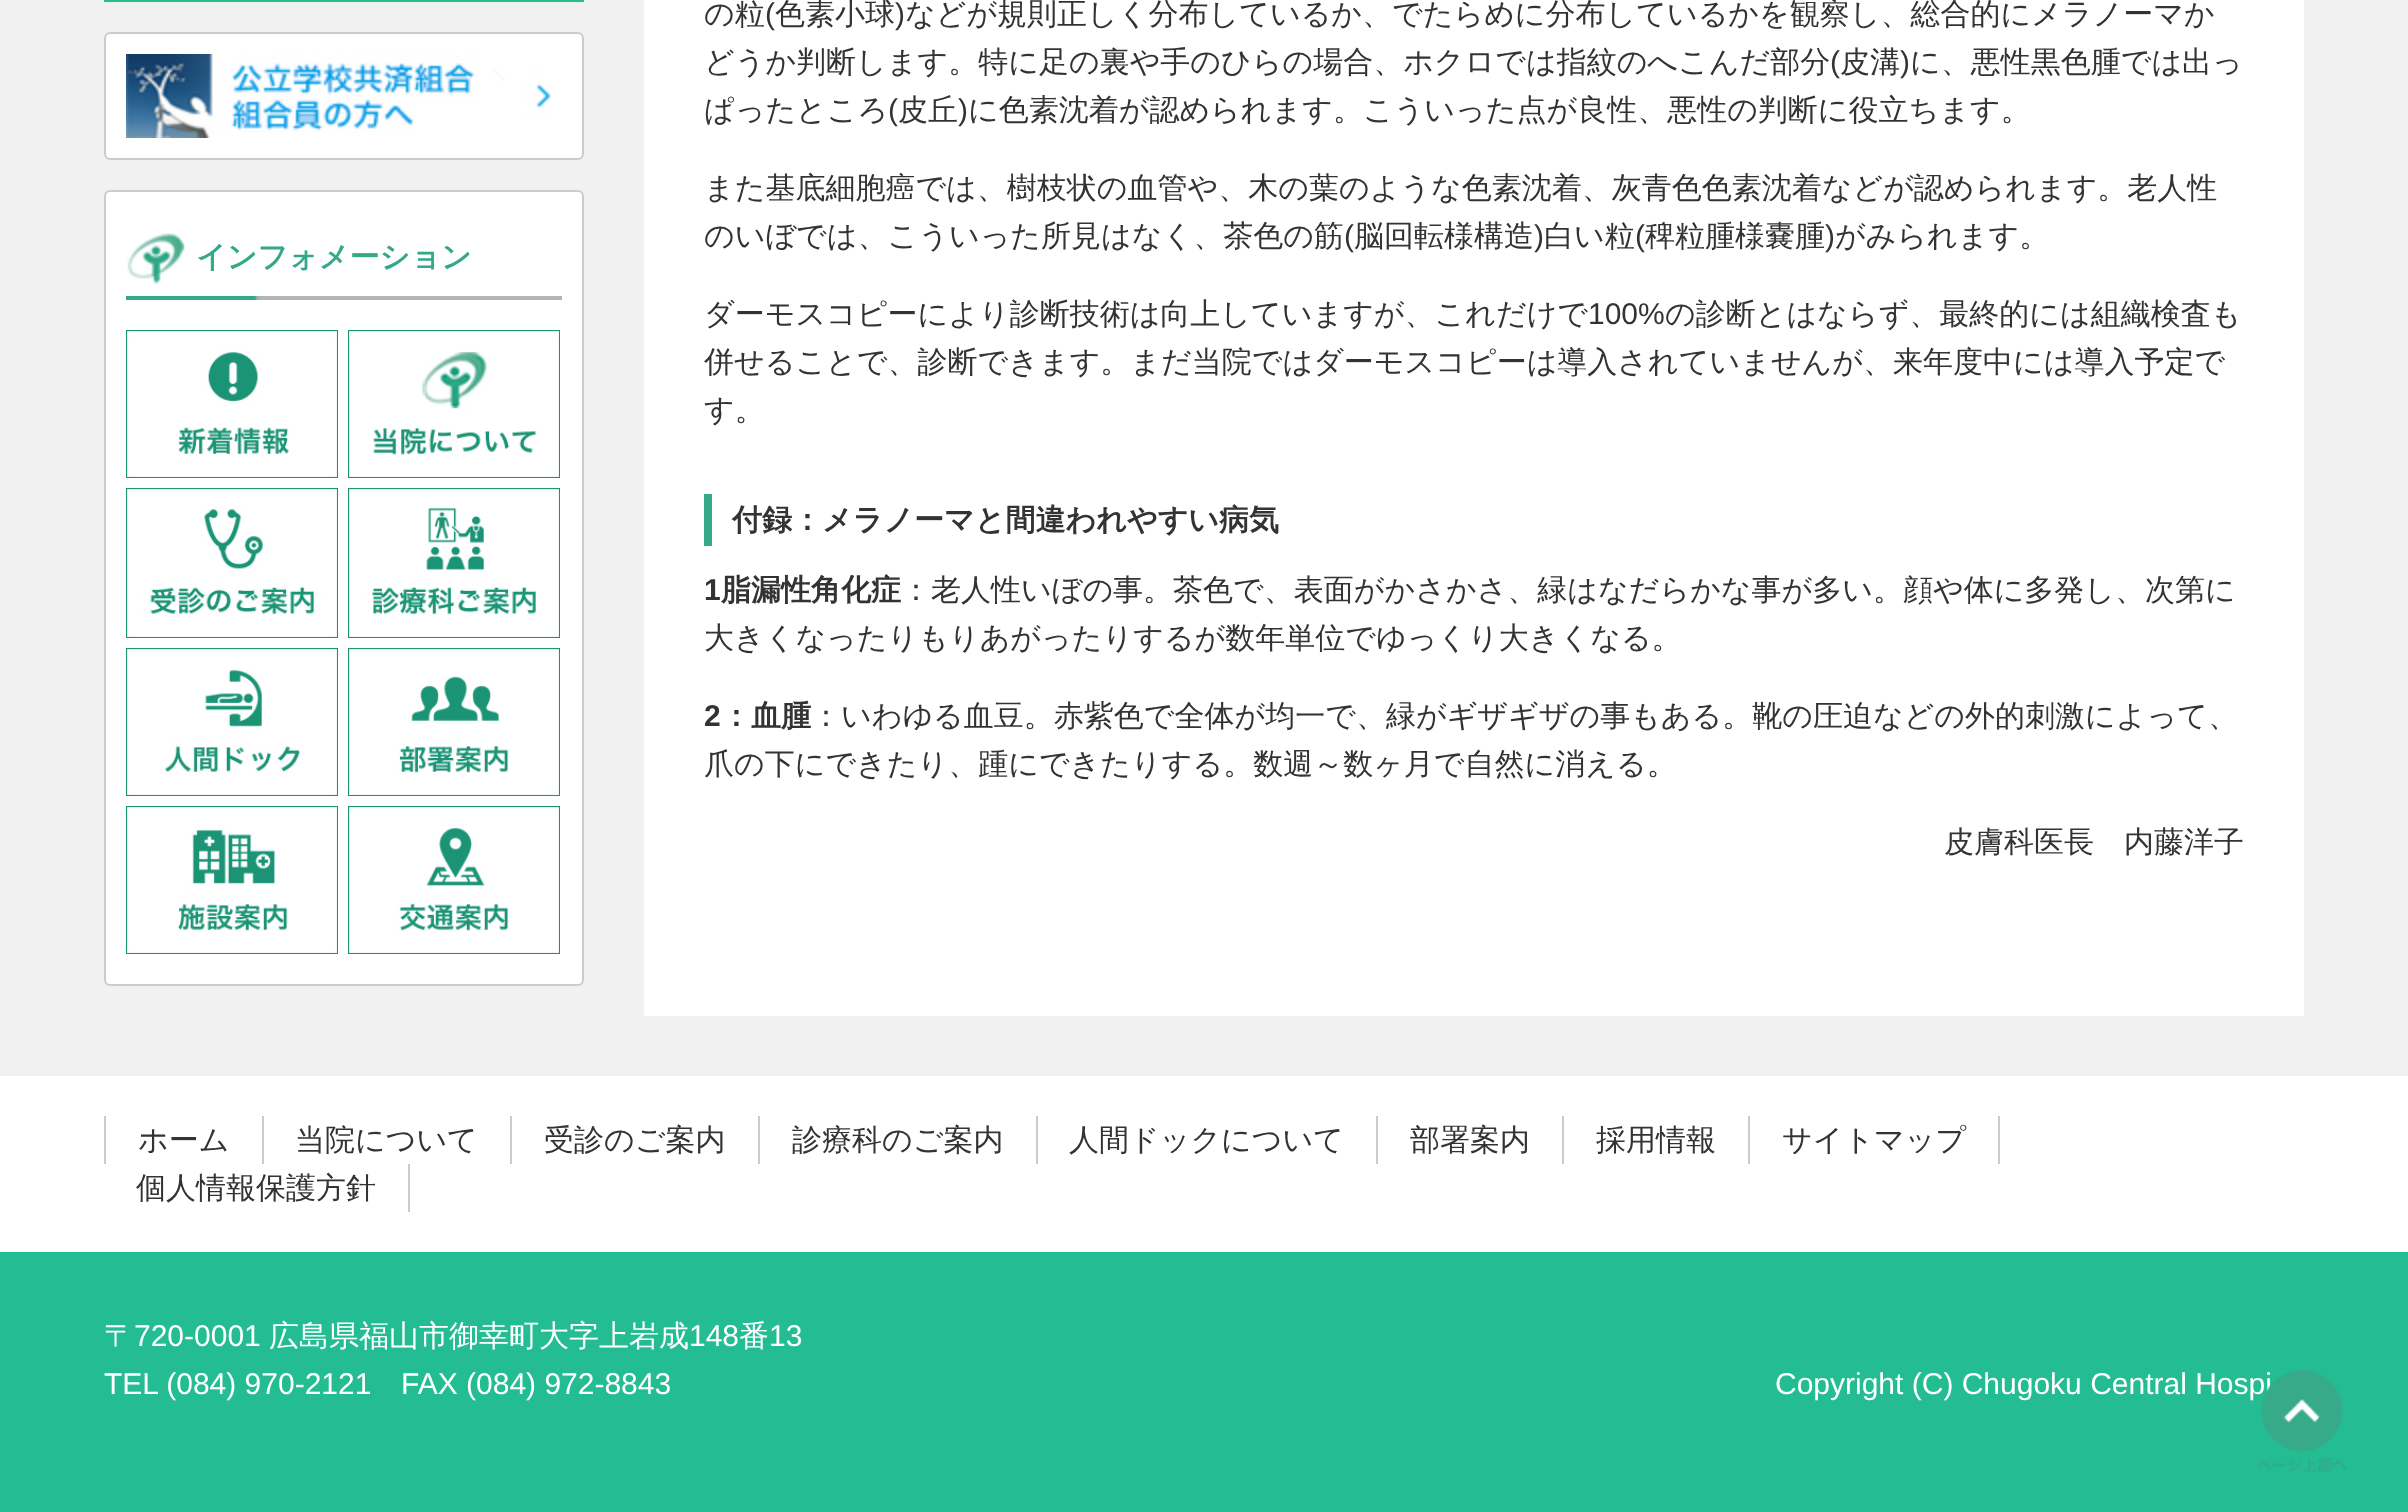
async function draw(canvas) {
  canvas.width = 2408;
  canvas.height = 1512;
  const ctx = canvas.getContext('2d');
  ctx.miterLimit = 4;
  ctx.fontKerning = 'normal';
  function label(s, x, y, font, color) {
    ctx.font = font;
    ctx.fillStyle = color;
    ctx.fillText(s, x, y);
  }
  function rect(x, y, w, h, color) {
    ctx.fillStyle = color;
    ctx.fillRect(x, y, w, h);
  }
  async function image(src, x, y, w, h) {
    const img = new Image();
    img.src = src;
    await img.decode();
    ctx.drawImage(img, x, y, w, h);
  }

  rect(0, 0, 2408, 1512, '#f1f1f1');
  rect(104, 0, 480, 2, '#24bd93');
  ctx.fillStyle = '#fff';
  ctx.beginPath();
  ctx.roundRect(105, 33, 478, 126, 5);
  ctx.fill();
  ctx.strokeStyle = '#ccc';
  ctx.lineWidth = 2;
  ctx.stroke();
  await image('assets/img1.png', 126, 54, 425, 84);
  ctx.beginPath();
  ctx.roundRect(105, 191, 478, 794, 5);
  ctx.fill();
  ctx.stroke();
  await image('assets/img2.png', 127, 233, 58, 52);
  await image('assets/img3.png', 126, 296, 436, 4);
  label('インフォメーション', 196, 267, 'bold 30px WenQuanYi Zen Hei', '#34a989');
  await image('assets/img4.png', 126, 330, 212, 148);
  await image('assets/img5.png', 348, 330, 212, 148);
  await image('assets/img6.png', 126, 488, 212, 150);
  await image('assets/img7.png', 348, 488, 212, 150);
  await image('assets/img8.png', 126, 648, 212, 148);
  await image('assets/img9.png', 348, 648, 212, 148);
  await image('assets/img10.png', 126, 806, 212, 148);
  await image('assets/img11.png', 348, 806, 212, 148);
  rect(644, 0, 1660, 1016, '#fff');
  label('の粒', 704, 24, '500 30px WenQuanYi Zen Hei', '#333');
  label('(', 765, 24, '30px Liberation Sans', '#333');
  label('色素小球', 775, 24, '500 30px WenQuanYi Zen Hei', '#333');
  label(')', 895, 24, '30px Liberation Sans', '#333');
  label('などが規則正しく分布しているか、でたらめに分布しているかを観察し、総合的にメラノーマか', 905, 24, '500 30px WenQuanYi Zen Hei', '#333');
  label('どうか判断します。特に足の裏や手のひらの場合、ホクロでは指紋のへこんだ部分', 704, 72, '500 30px WenQuanYi Zen Hei', '#333');
  label('(', 1830, 72, '30px Liberation Sans', '#333');
  label('皮溝', 1840, 72, '500 30px WenQuanYi Zen Hei', '#333');
  label(')', 1900, 72, '30px Liberation Sans', '#333');
  label('に、悪性黒色腫では出っ', 1910, 72, '500 30px WenQuanYi Zen Hei', '#333');
  label('ぱったところ', 704, 120, '500 30px WenQuanYi Zen Hei', '#333');
  label('(', 888, 120, '30px Liberation Sans', '#333');
  label('皮丘', 898, 120, '500 30px WenQuanYi Zen Hei', '#333');
  label(')', 958, 120, '30px Liberation Sans', '#333');
  label('に色素沈着が認められます。こういった点が良性、悪性の判断に役立ちます。', 968, 120, '500 30px WenQuanYi Zen Hei', '#333');
  label('また基底細胞癌では、樹枝状の血管や、木の葉のような色素沈着、灰青色色素沈着などが認められます。老人性', 704, 198, '500 30px WenQuanYi Zen Hei', '#333');
  label('のいぼでは、こういった所見はなく、茶色の筋', 704, 246, '500 30px WenQuanYi Zen Hei', '#333');
  label('(', 1344, 246, '30px Liberation Sans', '#333');
  label('脳回転様構造', 1354, 246, '500 30px WenQuanYi Zen Hei', '#333');
  label(')', 1534, 246, '30px Liberation Sans', '#333');
  label('白い粒', 1544, 246, '500 30px WenQuanYi Zen Hei', '#333');
  label('(', 1635, 246, '30px Liberation Sans', '#333');
  label('稗粒腫様嚢腫', 1645, 246, '500 30px WenQuanYi Zen Hei', '#333');
  label(')', 1825, 246, '30px Liberation Sans', '#333');
  label('がみられます。', 1835, 246, '500 30px WenQuanYi Zen Hei', '#333');
  label('ダーモスコピーにより診断技術は向上していますが、これだけで', 704, 324, '500 30px WenQuanYi Zen Hei', '#333');
  label('100%', 1588, 324, '30px Liberation Sans', '#333');
  label('の診断とはならず、最終的には組織検査も', 1665, 324, '500 30px WenQuanYi Zen Hei', '#333');
  label('併せることで、診断できます。まだ当院ではダーモスコピーは導入されていませんが、来年度中には導入予定で', 704, 372, '500 30px WenQuanYi Zen Hei', '#333');
  label('す。', 704, 420, '500 30px WenQuanYi Zen Hei', '#333');
  rect(704, 494, 8, 52, '#35a989');
  label('付録：メラノーマと間違われやすい病気', 732, 530, 'bold 30px WenQuanYi Zen Hei', '#333');
  label('1', 704, 600, 'bold 30px Liberation Sans', '#333');
  label('脂漏性角化症', 721, 600, 'bold 30px WenQuanYi Zen Hei', '#333');
  label('：老人性いぼの事。茶色で、表面がかさかさ、緑はなだらかな事が多い。顔や体に多発し、次第に', 901, 600, '500 30px WenQuanYi Zen Hei', '#333');
  label('大きくなったりもりあがったりするが数年単位でゆっくり大きくなる。', 704, 648, '500 30px WenQuanYi Zen Hei', '#333');
  label('2', 704, 726, 'bold 30px Liberation Sans', '#333');
  label('：血腫', 721, 726, 'bold 30px WenQuanYi Zen Hei', '#333');
  label('：いわゆる血豆。赤紫色で全体が均一で、緑がギザギザの事もある。靴の圧迫などの外的刺激によって、', 811, 726, '500 30px WenQuanYi Zen Hei', '#333');
  label('爪の下にできたり、踵にできたりする。数週～数ヶ月で自然に消える。', 704, 774, '500 30px WenQuanYi Zen Hei', '#333');
  label('皮膚科医長　内藤洋子', 1944, 852, '500 30px WenQuanYi Zen Hei', '#333');
  rect(0, 1076, 2408, 176, '#fff');
  rect(104, 1116, 2, 48, '#ccc');
  rect(262, 1116, 2, 48, '#ccc');
  label('ホーム', 138, 1150, '500 30px WenQuanYi Zen Hei', '#333');
  rect(510, 1116, 2, 48, '#ccc');
  label('当院について', 295, 1150, '500 30px WenQuanYi Zen Hei', '#333');
  rect(758, 1116, 2, 48, '#ccc');
  label('受診のご案内', 544, 1150, '500 30px WenQuanYi Zen Hei', '#333');
  rect(1036, 1116, 2, 48, '#ccc');
  label('診療科のご案内', 792, 1150, '500 30px WenQuanYi Zen Hei', '#333');
  rect(1376, 1116, 2, 48, '#ccc');
  label('人間ドックについて', 1069, 1150, '500 30px WenQuanYi Zen Hei', '#333');
  rect(1562, 1116, 2, 48, '#ccc');
  label('部署案内', 1410, 1150, '500 30px WenQuanYi Zen Hei', '#333');
  rect(1748, 1116, 2, 48, '#ccc');
  label('採用情報', 1596, 1150, '500 30px WenQuanYi Zen Hei', '#333');
  rect(1998, 1116, 2, 48, '#ccc');
  label('サイトマップ', 1782, 1150, '500 30px WenQuanYi Zen Hei', '#333');
  rect(408, 1164, 2, 48, '#ccc');
  label('個人情報保護方針', 136, 1198, '500 30px WenQuanYi Zen Hei', '#333');
  rect(0, 1252, 2408, 260, '#24bd93');
  label('〒', 104, 1346, '500 30px WenQuanYi Zen Hei', '#fff');
  label('720-0001', 134, 1346, '30px Liberation Sans', '#fff');
  label('広島県福山市御幸町大字上岩成', 269, 1346, '500 30px WenQuanYi Zen Hei', '#fff');
  label('148', 689, 1346, '30px Liberation Sans', '#fff');
  label('番', 739, 1346, '500 30px WenQuanYi Zen Hei', '#fff');
  label('13', 769, 1346, '30px Liberation Sans', '#fff');
  label('TEL (084) 970-2121', 104, 1394, '30px Liberation Sans', '#fff');
  label('FAX (084) 972-8843', 401, 1394, '30px Liberation Sans', '#fff');
  label('Copyright (C) Chugoku Central Hospi', 1775, 1394, '30px Liberation Sans', '#fff');
  await image('assets/img12.png', 2257, 1370, 90, 102);
}

draw(document.querySelector('canvas'));
